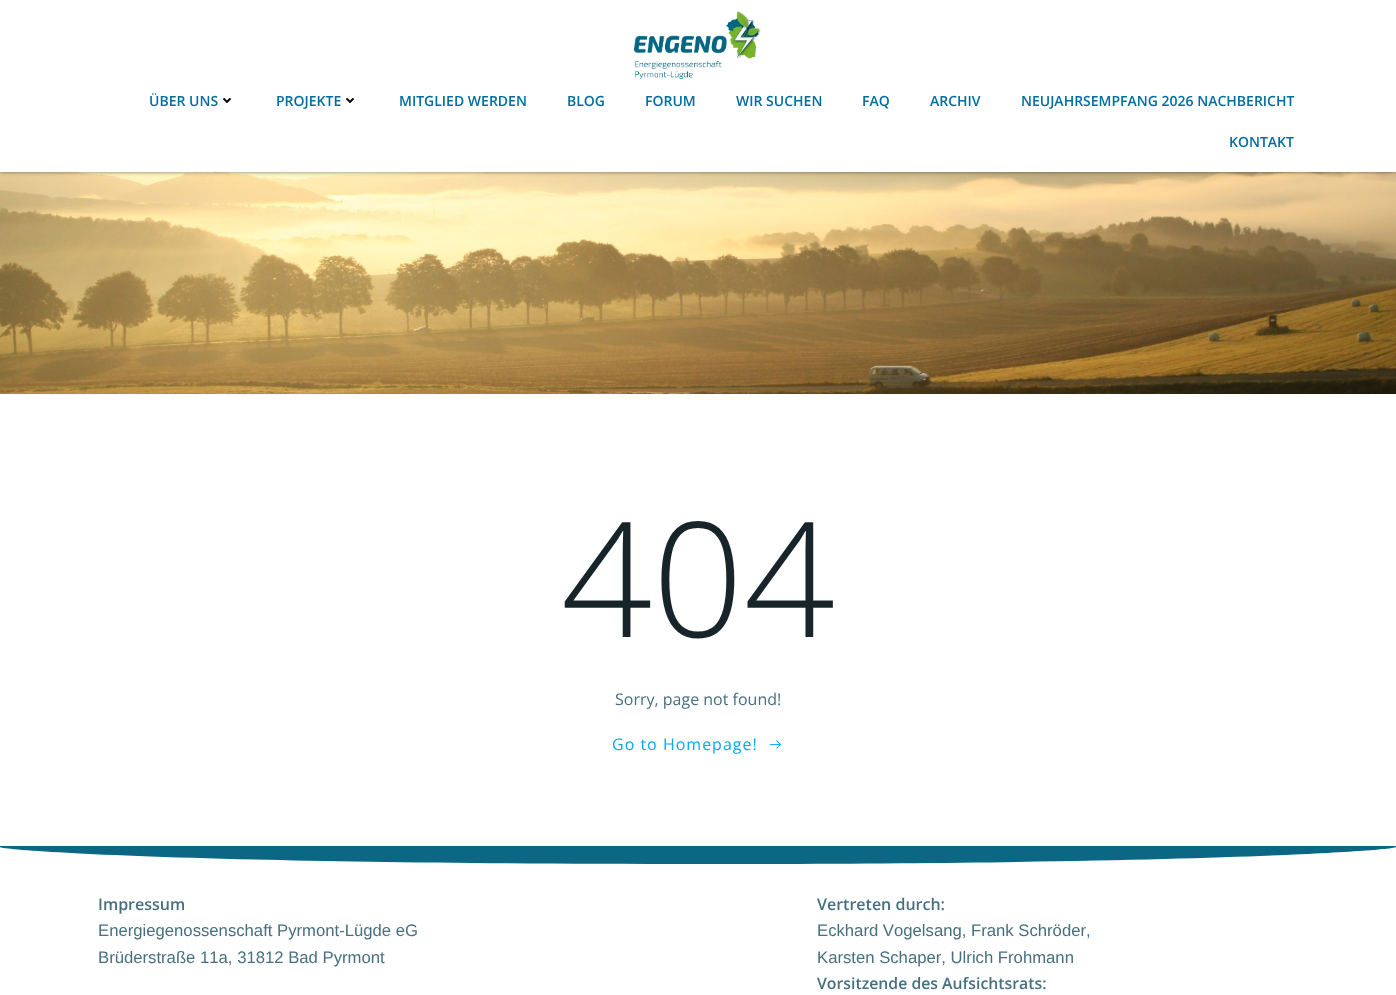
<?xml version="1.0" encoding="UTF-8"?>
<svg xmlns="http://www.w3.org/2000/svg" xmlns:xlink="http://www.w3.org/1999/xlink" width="1396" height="995">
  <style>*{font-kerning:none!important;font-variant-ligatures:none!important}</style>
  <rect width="100%" height="100%" fill="#ffffff" />
  <image x="0" y="172" width="1396" height="222" xlink:href="image3.png" />
  <rect width="1396" height="172" fill="#000000" fill-opacity="0.5" filter="blur(2px)" />
  <rect width="1396" height="172" fill="#ffffff" />
  <image x="634" y="11" width="127" height="68" xlink:href="image1.png" />
  <image x="223" y="98" width="8" height="5" xlink:href="image2.png" />
  <image x="346" y="98" width="8" height="5" xlink:href="image2.png" />
  <image x="769" y="740" width="12" height="9" xlink:href="image4.png" />
  <path d="M 1396 847 v -1 h -1396 v 1 c 1 3 177 17 698 17 c 521 0 698 -14 698 -17 z" fill="#0c6785" />
  <text x="149" y="106" style="font-family: Open Sans; font-size: 14px; font-weight: 600; fill: #026e9f">ÜBER UNS</text>
  <text x="276" y="106" style="font-family: Open Sans; font-size: 14px; font-weight: 600; fill: #026e9f">PROJEKTE</text>
  <text x="399" y="106" style="font-family: Open Sans; font-size: 14px; font-weight: 600; fill: #026e9f">MITGLIED WERDEN</text>
  <text x="567" y="106" style="font-family: Open Sans; font-size: 14px; font-weight: 600; fill: #026e9f">BLOG</text>
  <text x="645" y="106" style="font-family: Open Sans; font-size: 14px; font-weight: 600; fill: #026e9f">FORUM</text>
  <text x="736" y="106" style="font-family: Open Sans; font-size: 14px; font-weight: 600; fill: #026e9f">WIR SUCHEN</text>
  <text x="862" y="106" style="font-family: Open Sans; font-size: 14px; font-weight: 600; fill: #026e9f">FAQ</text>
  <text x="930" y="106" style="font-family: Open Sans; font-size: 14px; font-weight: 600; fill: #026e9f">ARCHIV</text>
  <text x="1021" y="106" style="font-family: Open Sans; font-size: 14px; font-weight: 600; fill: #026e9f">NEUJAHRSEMPFANG 2026 NACHBERICHT</text>
  <text x="1229" y="147" style="font-family: Open Sans; font-size: 14px; font-weight: 600; fill: #026e9f">KONTAKT</text>
  <text x="561" y="637" style="font-family: Open Sans; font-size: 160px; font-weight: 300; fill: #17252a">404</text>
  <text x="615" y="705" style="font-family: Open Sans; font-size: 16px; fill: #46707f">Sorry, page not found!</text>
  <text x="612" y="750" style="font-family: Open Sans; font-size: 16px; letter-spacing: 1px; fill: #03a9f4">Go to Homepage!</text>
  <text x="98" y="910" style="font-family: Open Sans; font-size: 16px; font-weight: 600; fill: #46707f">Impressum</text>
  <text x="98" y="936" style="font-family: Liberation Sans; font-size: 16.7px; fill: #46707f">Energiegenossenschaft Pyrmont-Lügde eG</text>
  <text x="98" y="963" style="font-family: Liberation Sans; font-size: 16.7px; fill: #46707f">Brüderstraße 11a, 31812 Bad Pyrmont</text>
  <text x="817" y="910" style="font-family: Open Sans; font-size: 16px; font-weight: 600; fill: #46707f">Vertreten durch:</text>
  <text x="817" y="936" style="font-family: Liberation Sans; font-size: 16.7px; fill: #46707f">Eckhard Vogelsang, Frank Schröder,</text>
  <text x="817" y="963" style="font-family: Liberation Sans; font-size: 16.7px; fill: #46707f">Karsten Schaper, Ulrich Frohmann</text>
  <text x="817" y="989" style="font-family: Open Sans; font-size: 15.8px; font-weight: 600; fill: #46707f">Vorsitzende des Aufsichtsrats:</text>
</svg>
